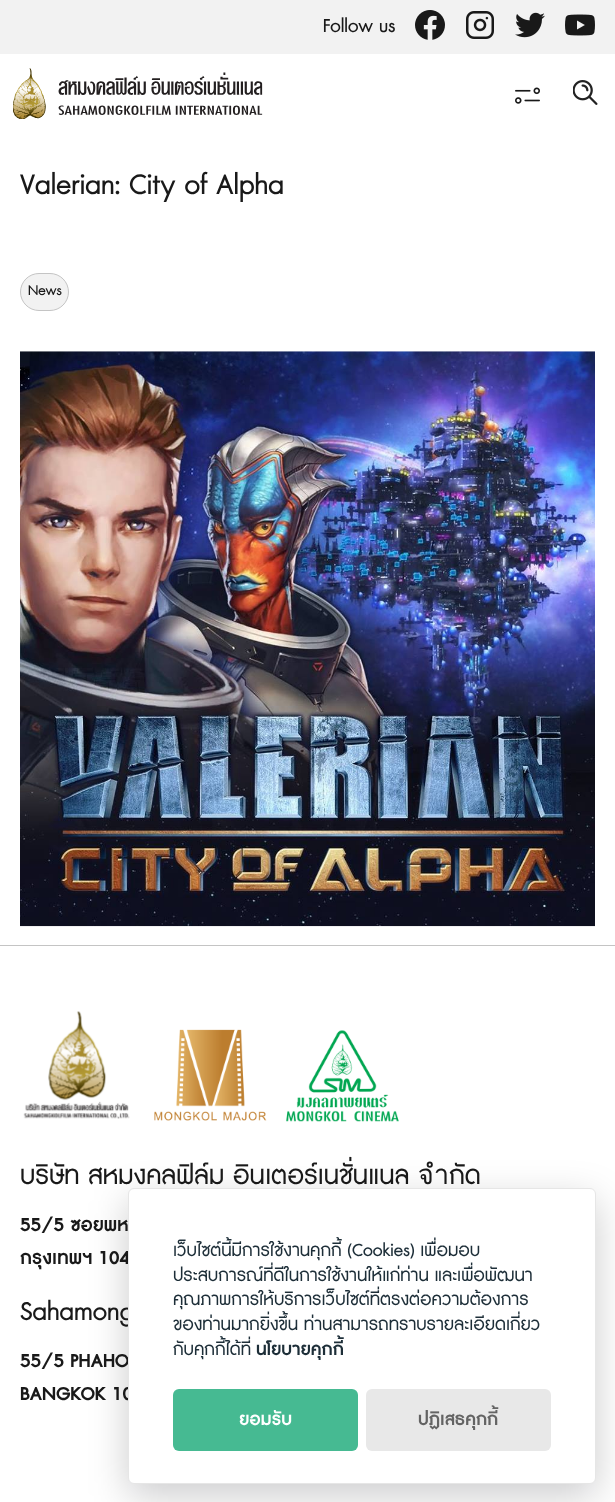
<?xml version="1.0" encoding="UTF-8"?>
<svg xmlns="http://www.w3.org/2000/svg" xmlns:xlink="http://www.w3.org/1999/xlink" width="615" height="1502">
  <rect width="100%" height="100%" fill="#ffffff" />
  <rect width="615" height="54" fill="#f2f2f2" />
  <image x="415" y="10" width="30" height="30" xlink:href="image1.png" />
  <image x="466" y="11" width="28" height="28" xlink:href="image2.png" />
  <image x="515" y="12" width="30" height="26" xlink:href="image3.png" />
  <image x="565" y="14" width="30" height="22" xlink:href="image4.png" />
  <image x="13" y="68" width="250" height="51" xlink:href="image5.png" />
  <image x="515" y="87" width="25" height="17" xlink:href="image6.png" />
  <image x="573" y="80" width="25" height="25" xlink:href="image7.png" />
  <rect x="20.5" y="273.5" width="48" height="37" rx="18.5" fill="#f2f2f2" stroke="#c4c4c4" />
  <image x="20" y="351" width="575" height="576" xlink:href="image8.png" />
  <rect y="945" width="615" height="1" fill="#c4c4c4" />
  <image x="23" y="1011" width="107" height="108" xlink:href="image9.png" />
  <image x="154" y="1029" width="113" height="92" xlink:href="image10.png" />
  <image x="286" y="1030" width="113" height="92" xlink:href="image11.png" />
  <rect x="128" y="1200" width="468" height="296" rx="6" fill="#020203" fill-opacity="0.2" filter="blur(19px)" />
  <text x="323" y="32" style="font-family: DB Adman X; font-size: 20px; fill: #191919">Follow us</text>
  <text x="20" y="194" style="font-family: DB Adman X; font-size: 30px; fill: #191919">Valerian: City of Alpha</text>
  <text x="28" y="295" style="font-family: DB Adman X; font-size: 15px; fill: #191919">News</text>
  <text x="20" y="1184" style="font-family: DB Adman X; font-size: 27.5px; fill: #191919">บริษัท สหมงคลฟิล์ม อินเตอร์เนชั่นแนล จำกัด</text>
  <text x="20" y="1231" style="font-family: DB Adman X; font-size: 20px; font-weight: bold; fill: #191919">55/5 ซอยพห</text>
  <text x="20" y="1264" style="font-family: DB Adman X; font-size: 20px; font-weight: bold; fill: #191919">กรุงเทพฯ 104</text>
  <text x="20" y="1320" style="font-family: DB Adman X; font-size: 27.5px; fill: #191919">Sahamong</text>
  <text x="20" y="1367" style="font-family: DB Adman X; font-size: 20px; font-weight: bold; fill: #191919">55/5 PHAHO</text>
  <text x="20" y="1400" style="font-family: DB Adman X; font-size: 20px; font-weight: bold; fill: #191919">BANGKOK 10</text>
  <rect x="128.5" y="1188.5" width="467" height="295" rx="5.5" fill="#ffffff" stroke="#e6e6e6" />
  <text x="173" y="1256" style="font-family: DB Adman X; font-size: 18.75px; fill: #1d2e38">เว็บไซต์นี้มีการใช้งานคุกกี้ (Cookies) เพื่อมอบ</text>
  <text x="173" y="1281" style="font-family: DB Adman X; font-size: 18.75px; fill: #1d2e38">ประสบการณ์ที่ดีในการใช้งานให้แก่ท่าน และเพื่อพัฒนา</text>
  <text x="173" y="1305" style="font-family: DB Adman X; font-size: 18.75px; fill: #1d2e38">คุณภาพการให้บริการเว็บไซต์ที่ตรงต่อความต้องการ</text>
  <text x="173" y="1330" style="font-family: DB Adman X; font-size: 18.75px; fill: #1d2e38">ของท่านมากยิ่งขึ้น ท่านสามารถทราบรายละเอียดเกี่ยว</text>
  <text x="173" y="1355" style="font-family: DB Adman X; font-size: 18.75px; fill: #1d2e38">กับคุกกี้ได้ที่</text>
  <text x="256" y="1355" style="font-family: DB Adman X; font-size: 18.75px; font-weight: bold; fill: #1d2e38">นโยบายคุกกี้</text>
  <rect x="173" y="1389" width="185" height="62" rx="6" fill="#46ba92" />
  <text x="239" y="1425" style="font-family: DB Adman X; font-size: 18.75px; font-weight: bold; fill: #ffffff">ยอมรับ</text>
  <rect x="366" y="1389" width="185" height="62" rx="6" fill="#e8e8e8" />
  <text x="418" y="1425" style="font-family: DB Adman X; font-size: 18.75px; font-weight: bold; fill: #636363">ปฏิเสธคุกกี้</text>
</svg>
